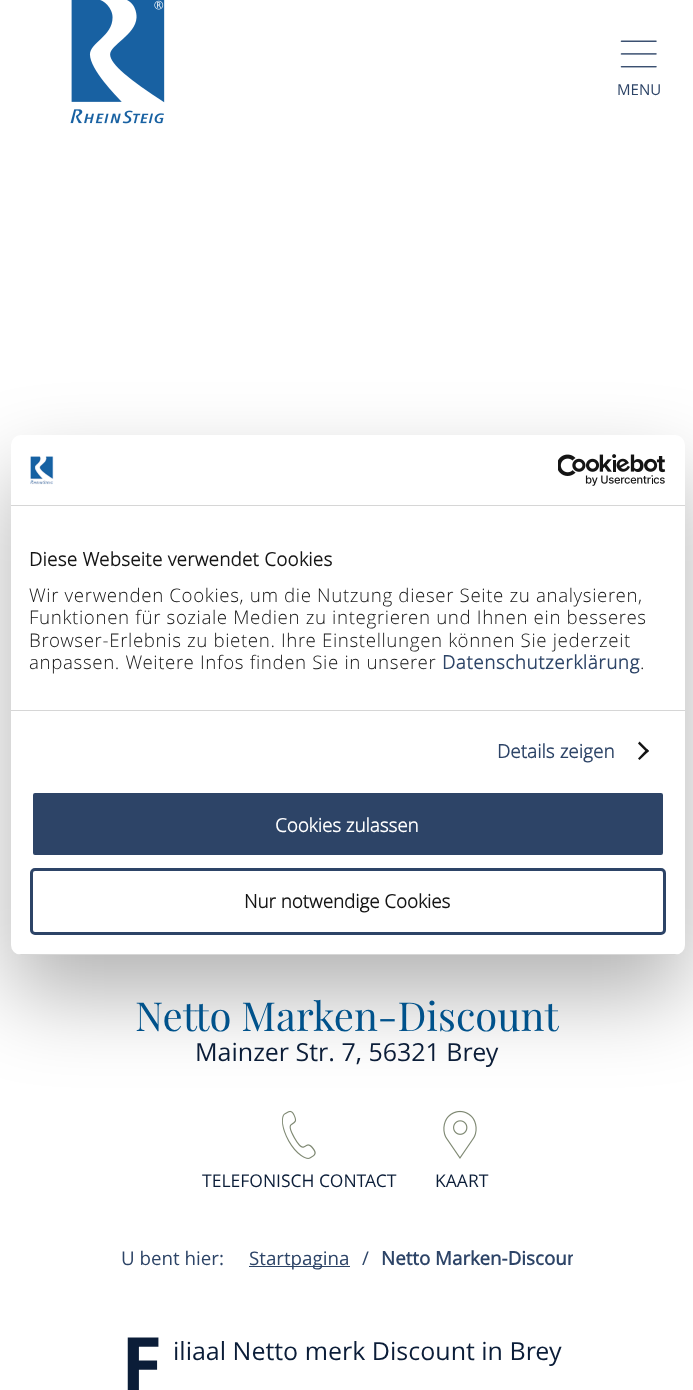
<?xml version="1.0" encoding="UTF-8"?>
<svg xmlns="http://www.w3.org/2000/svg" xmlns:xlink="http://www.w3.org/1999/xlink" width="693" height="1390">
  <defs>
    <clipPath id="clip1"><rect x="11" y="435" width="674" height="520" rx="10" /></clipPath>
    <clipPath id="clip2"><rect x="121" y="1239" width="452" height="37" /></clipPath>
  </defs>
  <rect width="100%" height="100%" fill="#ffffff" />
  <image x="70" y="0" width="95" height="124" xlink:href="image1.png" />
  <image x="620" y="40" width="37" height="28" xlink:href="image2.png" />
  <image x="282" y="1110" width="34" height="49" xlink:href="image5.png" />
  <image x="443" y="1110" width="34" height="49" xlink:href="image6.png" />
  <rect x="11" y="475" width="674" height="520" rx="10" fill="#000000" fill-opacity="0.3" filter="blur(42.5px)" />
  <rect x="11" y="435" width="674" height="520" rx="10" fill="#ffffff" />
  <rect x="11" y="505" width="674" height="1" fill="#d6d6d6" />
  <image x="30" y="456" width="24" height="29" xlink:href="image3.png" />
  <image x="558" y="454" width="108" height="32" xlink:href="image4.png" />
  <rect x="11" y="710" width="674" height="1" fill="#d6d6d6" />
  <path d="M 639.5 741.5 l 9.5 9.5 l -2 1.5 l -9 -9 z" fill="#141414" />
  <path d="M 647 749 l 2 2 l -9.5 9 l -1.5 -1.5 z" fill="#141414" />
  <g clip-path="url(#clip1)">
    <rect x="11" y="954" width="674" height="1" fill="#d6d6d6" />
  </g>
  <rect x="31.5" y="791.5" width="633" height="65" rx="3.5" fill="#2d4467" stroke="#ffffff" stroke-width="3" />
  <rect x="31.5" y="869.5" width="633" height="64" rx="3.5" fill="none" stroke="#2d4467" stroke-width="3" />
  <rect x="249" y="1266" width="101" height="1" fill="#2d4467" />
  <text x="617" y="95" style="font-family: Open Sans; font-size: 15px; fill: #2d4467">MENU</text>
  <text x="29" y="566" style="font-family: 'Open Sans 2'; font-size: 18.75px; font-weight: bold; letter-spacing: 0.3px; fill: #141414">Diese Webseite verwendet Cookies</text>
  <text x="29" y="602" style="font-family: Open Sans; font-size: 18.75px; font-weight: 300; letter-spacing: 0.62px; fill: #141414">Wir verwenden Cookies, um die Nutzung dieser Seite zu analysieren,</text>
  <text x="29" y="624" style="font-family: Open Sans; font-size: 18.75px; font-weight: 300; letter-spacing: 0.62px; fill: #141414">Funktionen für soziale Medien zu integrieren und Ihnen ein besseres</text>
  <text x="29" y="647" style="font-family: Open Sans; font-size: 18.75px; font-weight: 300; letter-spacing: 0.62px; fill: #141414">Browser-Erlebnis zu bieten. Ihre Einstellungen können Sie jederzeit</text>
  <text x="29" y="669" style="font-family: Open Sans; font-size: 18.75px; font-weight: 300; letter-spacing: 0.62px; fill: #141414">anpassen. Weitere Infos finden Sie in unserer</text>
  <text x="442" y="669" style="font-family: 'Open Sans 2'; font-size: 18.75px; font-weight: bold; letter-spacing: 0.62px; fill: #2d4467">Datenschutzerklärung</text>
  <text x="640" y="669" style="font-family: Open Sans; font-size: 18.75px; font-weight: 300; letter-spacing: 0.62px; fill: #141414">.</text>
  <text x="497" y="758" style="font-family: 'Open Sans 2'; font-size: 18.75px; font-weight: bold; letter-spacing: 0.1px; fill: #2d4467">Details zeigen</text>
  <text x="275" y="832" style="font-family: 'Open Sans 2'; font-size: 18.75px; font-weight: bold; fill: #ffffff">Cookies zulassen</text>
  <text x="244" y="908" style="font-family: 'Open Sans 2'; font-size: 18.75px; font-weight: bold; fill: #141414">Nur notwendige Cookies</text>
  <text x="135" y="1031" style="font-family: Playfair Display; font-size: 40px; fill: #00528b">Netto Marken-Discount</text>
  <text x="195" y="1061" style="font-family: Open Sans; font-size: 25px; fill: #0b1d38">Mainzer Str. 7, 56321 Brey</text>
  <text x="202" y="1187" style="font-family: Open Sans; font-size: 17.5px; fill: #0b1d38">TELEFONISCH CONTACT</text>
  <text x="435" y="1187" style="font-family: Open Sans; font-size: 17.5px; fill: #0b1d38">KAART</text>
  <text x="121" y="1265" style="font-family: Open Sans; font-size: 18.75px; fill: #2d4467">U bent hier:</text>
  <text x="249" y="1265" style="font-family: Open Sans; font-size: 18.75px; fill: #2d4467">Startpagina</text>
  <text x="362" y="1265" style="font-family: Open Sans; font-size: 18.75px; fill: #2d4467">/</text>
  <g clip-path="url(#clip2)">
    <text x="381" y="1265" style="font-family: Open Sans; font-size: 18.75px; font-weight: bold; fill: #2d4467">Netto Marken-Discoun</text>
  </g>
  <text x="121" y="1391" style="font-family: Noto Sans; font-size: 75px; font-weight: bold; fill: #0b1d38">F</text>
  <text x="173" y="1360" style="font-family: Open Sans; font-size: 25px; fill: #0b1d38">iliaal Netto merk Discount in Brey</text>
</svg>
